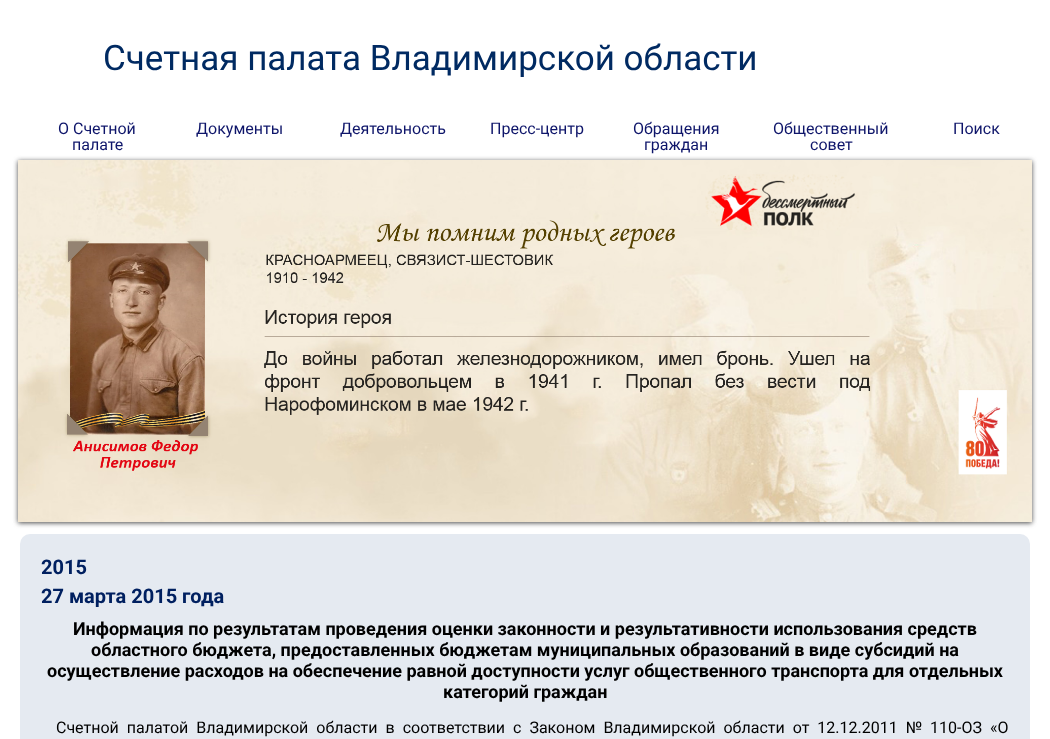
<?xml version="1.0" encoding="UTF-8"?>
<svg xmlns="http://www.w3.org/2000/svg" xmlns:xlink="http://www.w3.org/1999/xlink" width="1050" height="739">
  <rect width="100%" height="100%" fill="#ffffff" />
  <rect x="18" y="161" width="1014" height="362" fill="#4a4a4a" filter="blur(2.5px)" />
  <image x="18" y="160" width="1014" height="362" xlink:href="image1.png" />
  <rect x="20" y="534" width="1010" height="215" rx="10" fill="#e5eaf1" />
  <text x="103" y="70" style="font-family: Roboto; font-size: 35px; fill: #002a62">Счетная палата Владимирской области</text>
  <text x="58" y="134" style="font-family: Roboto; font-size: 16px; fill: #0e156a">О Счетной</text>
  <text x="72" y="150" style="font-family: Roboto; font-size: 16px; fill: #0e156a">палате</text>
  <text x="196" y="134" style="font-family: Roboto; font-size: 16px; fill: #0e156a">Документы</text>
  <text x="340" y="134" style="font-family: Roboto; font-size: 16px; fill: #0e156a">Деятельность</text>
  <text x="490" y="134" style="font-family: Roboto; font-size: 16px; fill: #0e156a">Пресс-центр</text>
  <text x="633" y="134" style="font-family: Roboto; font-size: 16px; fill: #0e156a">Обращения</text>
  <text x="644" y="150" style="font-family: Roboto; font-size: 16px; fill: #0e156a">граждан</text>
  <text x="773" y="134" style="font-family: Roboto; font-size: 16px; fill: #0e156a">Общественный</text>
  <text x="810" y="150" style="font-family: Roboto; font-size: 16px; fill: #0e156a">совет</text>
  <text x="953" y="134" style="font-family: Roboto; font-size: 16px; fill: #0e156a">Поиск</text>
  <text x="41" y="574" style="font-family: Roboto; font-size: 20px; font-weight: bold; fill: #002060">2015</text>
  <text x="41" y="603" style="font-family: Roboto; font-size: 20px; font-weight: bold; fill: #002060">27 марта 2015 года</text>
  <text x="73" y="635" style="font-family: Roboto; font-size: 18px; font-weight: bold; fill: #000000">Информация по результатам проведения оценки законности и результативности использования средств</text>
  <text x="91" y="656" style="font-family: Roboto; font-size: 18px; font-weight: bold; fill: #000000">областного бюджета, предоставленных бюджетам муниципальных образований в виде субсидий на</text>
  <text x="47" y="677" style="font-family: Roboto; font-size: 18px; font-weight: bold; fill: #000000">осуществление расходов на обеспечение равной доступности услуг общественного транспорта для отдельных</text>
  <text x="443" y="698" style="font-family: Roboto; font-size: 18px; font-weight: bold; fill: #000000">категорий граждан</text>
  <text x="56" y="733" word-spacing="4" style="font-family: Roboto; font-size: 16px; fill: #000000">Счетной палатой Владимирской области в соответствии с Законом Владимирской области от 12.12.2011 № 110-ОЗ «О</text>
</svg>
